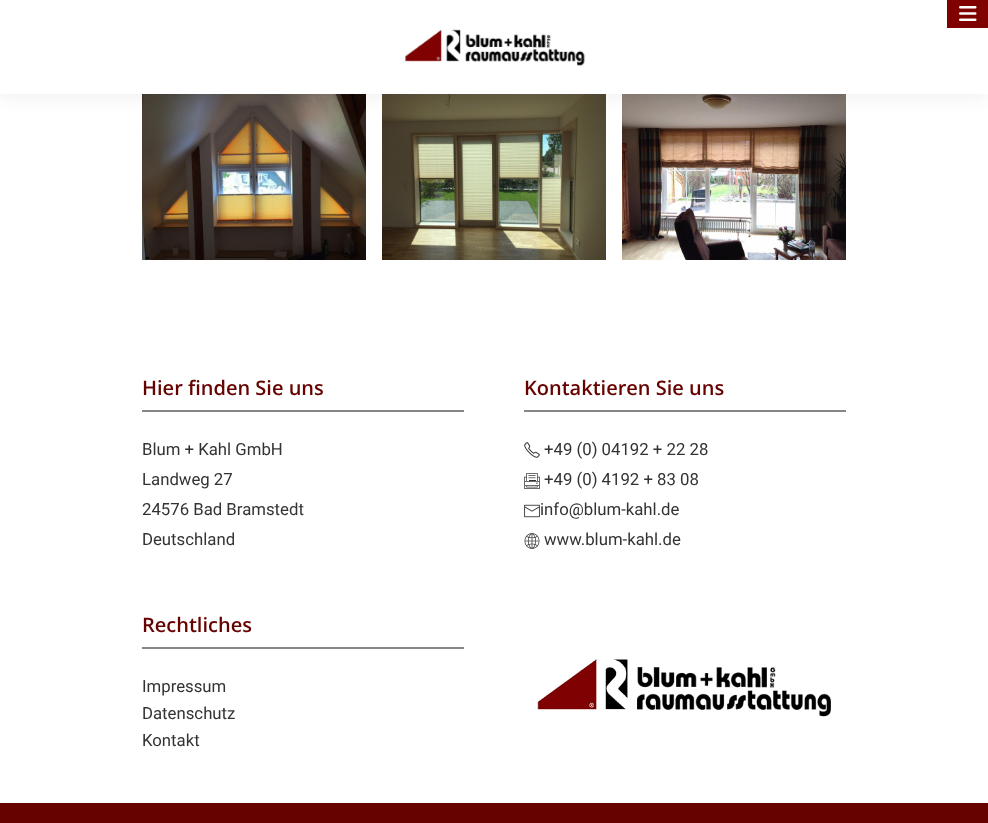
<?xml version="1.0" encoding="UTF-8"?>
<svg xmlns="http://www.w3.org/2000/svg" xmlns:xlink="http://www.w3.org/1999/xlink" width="988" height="823">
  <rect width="100%" height="100%" fill="#ffffff" />
  <image x="142" y="94" width="224" height="166" xlink:href="image3.png" />
  <image x="382" y="94" width="224" height="166" xlink:href="image4.png" />
  <image x="622" y="94" width="224" height="166" xlink:href="image5.png" />
  <rect width="988" height="94" fill="#333333" fill-opacity="0.1" filter="blur(10px)" />
  <rect width="988" height="94" fill="#ffffff" />
  <rect x="947" width="41" height="28" fill="#7f0201" />
  <image x="959" y="6" width="18" height="15" xlink:href="image1.png" />
  <image x="405" y="29" width="181" height="37" xlink:href="image2.png" />
  <rect x="142" y="410" width="322" height="2" fill="#868686" />
  <rect x="524" y="410" width="322" height="2" fill="#868686" />
  <image x="524" y="442" width="16" height="16" xlink:href="image6.png" />
  <image x="524" y="473" width="16" height="16" xlink:href="image7.png" />
  <image x="524" y="504" width="16" height="14" xlink:href="image8.png" />
  <image x="524" y="533" width="16" height="16" xlink:href="image9.png" />
  <rect x="142" y="647" width="322" height="2" fill="#868686" />
  <image x="537" y="659" width="294" height="58" xlink:href="image10.png" />
  <rect y="803" width="988" height="20" fill="#660300" />
  <text x="142" y="395" style="font-family: Open Sans; font-size: 20px; font-weight: 600; fill: #660300">Hier finden Sie uns</text>
  <text x="142" y="455" style="font-family: Roboto; font-size: 16.75px; fill: #333333">Blum + Kahl GmbH</text>
  <text x="142" y="485" style="font-family: Roboto; font-size: 16.75px; fill: #333333">Landweg 27</text>
  <text x="142" y="515" style="font-family: Roboto; font-size: 16.75px; fill: #333333">24576 Bad Bramstedt</text>
  <text x="142" y="545" style="font-family: Roboto; font-size: 16.75px; fill: #333333">Deutschland</text>
  <text x="524" y="395" style="font-family: Open Sans; font-size: 20px; font-weight: 600; fill: #660300">Kontaktieren Sie uns</text>
  <text x="544" y="455" style="font-family: Roboto; font-size: 16.75px; fill: #333333">+49 (0) 04192 + 22 28</text>
  <text x="544" y="485" style="font-family: Roboto; font-size: 16.75px; fill: #333333">+49 (0) 4192 + 83 08</text>
  <text x="540" y="515" style="font-family: Roboto; font-size: 16.75px; fill: #333333">info@blum-kahl.de</text>
  <text x="544" y="545" style="font-family: Roboto; font-size: 16.75px; fill: #333333">www.blum-kahl.de</text>
  <text x="142" y="632" style="font-family: Open Sans; font-size: 20px; font-weight: 600; fill: #660300">Rechtliches</text>
  <text x="142" y="692" style="font-family: Roboto; font-size: 16.75px; fill: #333333">Impressum</text>
  <text x="142" y="719" style="font-family: Roboto; font-size: 16.75px; fill: #333333">Datenschutz</text>
  <text x="142" y="746" style="font-family: Roboto; font-size: 16.75px; fill: #333333">Kontakt</text>
</svg>
